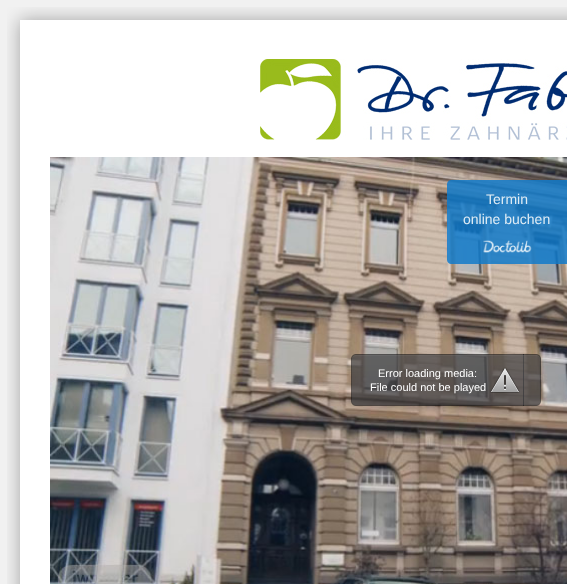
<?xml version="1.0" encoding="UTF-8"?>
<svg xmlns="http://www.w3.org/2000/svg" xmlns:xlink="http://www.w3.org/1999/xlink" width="567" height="584">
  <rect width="100%" height="100%" fill="#f1f1f1" />
  <image x="7" y="7" width="560" height="577" xlink:href="image2.png" />
  <image x="50" y="157" width="517" height="427" xlink:href="image4.png" />
  <path d="M 451 180 h 116 v 84 h -116 c -2 0 -4 -2 -4 -4 v -76 c 0 -2 2 -4 4 -4 z" fill="#107aca" fill-opacity="0.85" />
  <image x="483" y="240" width="49" height="13" xlink:href="image1.png" />
  <image x="260" y="59" width="307" height="81" xlink:href="image3.png" />
  <image x="351" y="354" width="190" height="52" xlink:href="image5.png" />
  <image x="490" y="367" width="30" height="26" xlink:href="image6.png" />
  <text x="486" y="204" style="font-family: Liberation Sans; font-size: 14px; fill: #dfecf5">Termin</text>
  <text x="463" y="224" style="font-family: Liberation Sans; font-size: 14px; fill: #dfecf5">online buchen</text>
  <text x="378" y="377" style="font-family: Liberation Sans; font-size: 11px; fill: #ffffff">Error loading media:</text>
  <text x="370" y="391" style="font-family: Liberation Sans; font-size: 11px; fill: #ffffff">File could not be played</text>
</svg>
